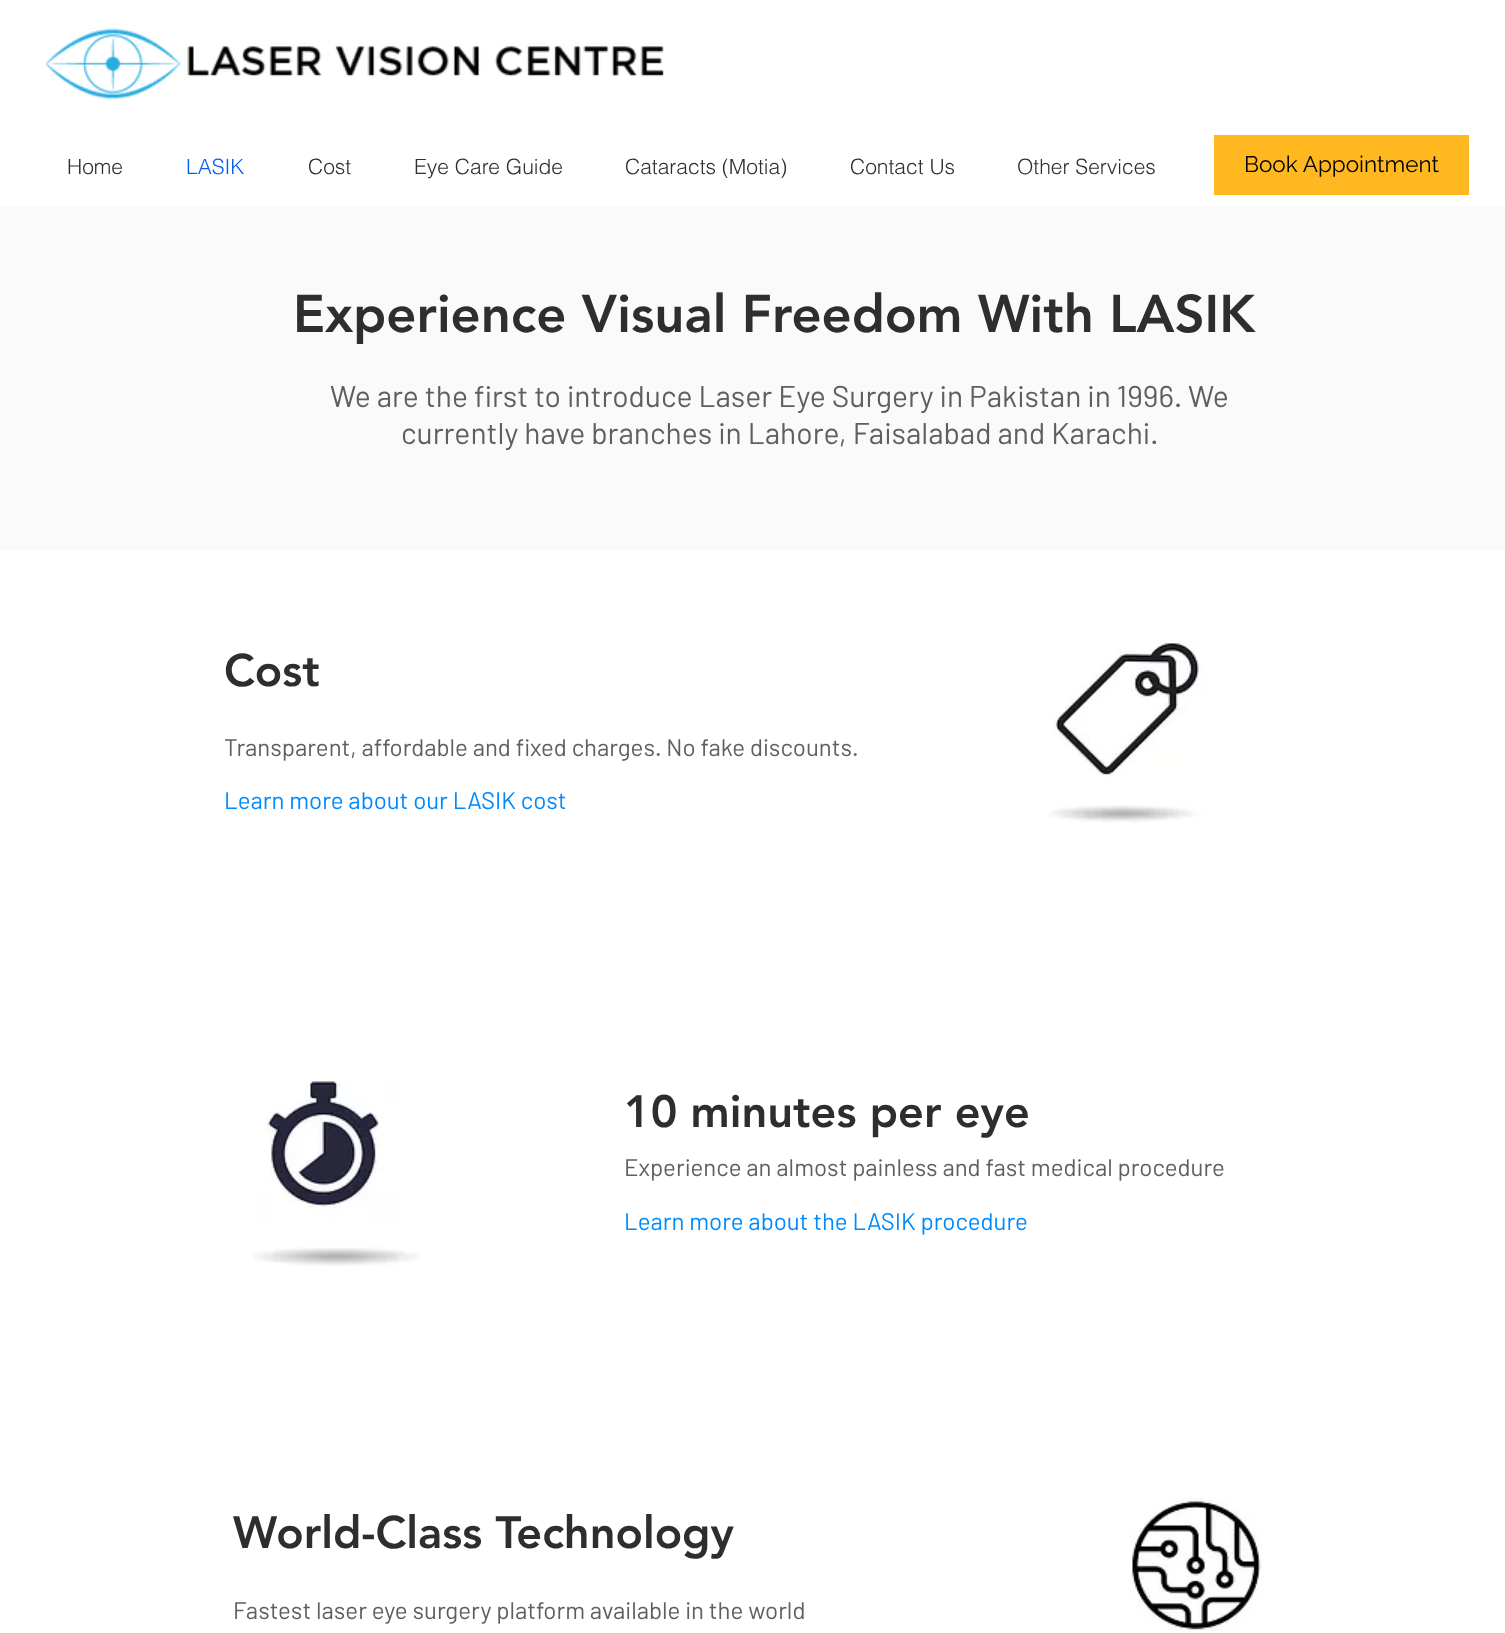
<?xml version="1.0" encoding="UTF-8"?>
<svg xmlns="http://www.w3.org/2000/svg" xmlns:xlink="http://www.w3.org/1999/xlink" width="1505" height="1633">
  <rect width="100%" height="100%" fill="#ffffff" />
  <image x="45" y="28" width="619" height="72" xlink:href="image1.png" />
  <rect x="1214" y="135" width="255" height="60" fill="#ffb81f" />
  <rect y="207" width="1505" height="344" fill="#fafafa" />
  <image x="1049" y="643" width="154" height="180" xlink:href="image2.png" />
  <image x="252" y="1081" width="167" height="185" xlink:href="image3.png" />
  <image x="1132" y="1498" width="131" height="133" xlink:href="image4.png" />
  <text x="67" y="174" style="font-family: helvetica; font-size: 21px; font-weight: 300; fill: #2f2e2e">Home</text>
  <text x="186" y="174" style="font-family: helvetica; font-size: 21px; font-weight: 300; fill: #0060ef">LASIK</text>
  <text x="308" y="174" style="font-family: helvetica; font-size: 21px; font-weight: 300; fill: #2f2e2e">Cost</text>
  <text x="414" y="174" style="font-family: helvetica; font-size: 21px; font-weight: 300; fill: #2f2e2e">Eye Care Guide</text>
  <text x="625" y="174" style="font-family: helvetica; font-size: 21px; font-weight: 300; fill: #2f2e2e">Cataracts (Motia)</text>
  <text x="850" y="174" style="font-family: helvetica; font-size: 21px; font-weight: 300; fill: #2f2e2e">Contact Us</text>
  <text x="1017" y="174" style="font-family: helvetica; font-size: 21px; font-weight: 300; fill: #2f2e2e">Other Services</text>
  <text x="1244" y="172" style="font-family: Raleway; font-size: 22.5px; fill: #000000">Book Appointment</text>
  <text x="293" y="332" style="font-family: 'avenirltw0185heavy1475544'; font-size: 52.5px; font-weight: 900; fill: #2f2e2e">Experience Visual Freedom With LASIK</text>
  <text x="330" y="407" style="font-family: Barlow; font-size: 30px; fill: #605e5e">We are the first to introduce Laser Eye Surgery in Pakistan in 1996. We</text>
  <text x="401" y="444" style="font-family: Barlow; font-size: 30px; fill: #605e5e">currently have branches in Lahore, Faisalabad and Karachi.</text>
  <text x="224" y="686" style="font-family: 'avenirltw0185heavy1475544'; font-size: 45px; font-weight: 900; fill: #2f2e2e">Cost</text>
  <text x="224" y="756" style="font-family: Barlow; font-size: 24px; fill: #605e5e">Transparent, affordable and fixed charges. No fake discounts.</text>
  <text x="224" y="809" style="font-family: Barlow; font-size: 24px; fill: #008afc">Learn more about our LASIK cost</text>
  <text x="624" y="1127" style="font-family: 'avenirltw0185heavy1475544'; font-size: 45px; font-weight: 900; fill: #2f2e2e">10 minutes per eye</text>
  <text x="624" y="1176" style="font-family: Barlow; font-size: 24px; fill: #605e5e">Experience an almost painless and fast medical procedure</text>
  <text x="624" y="1230" style="font-family: Barlow; font-size: 24px; fill: #008afc">Learn more about the LASIK procedure</text>
  <text x="233" y="1548" style="font-family: 'avenirltw0185heavy1475544'; font-size: 45px; font-weight: 900; fill: #2f2e2e">World-Class Technology</text>
  <text x="233" y="1619" style="font-family: Barlow; font-size: 24px; fill: #605e5e">Fastest laser eye surgery platform available in the world</text>
</svg>
